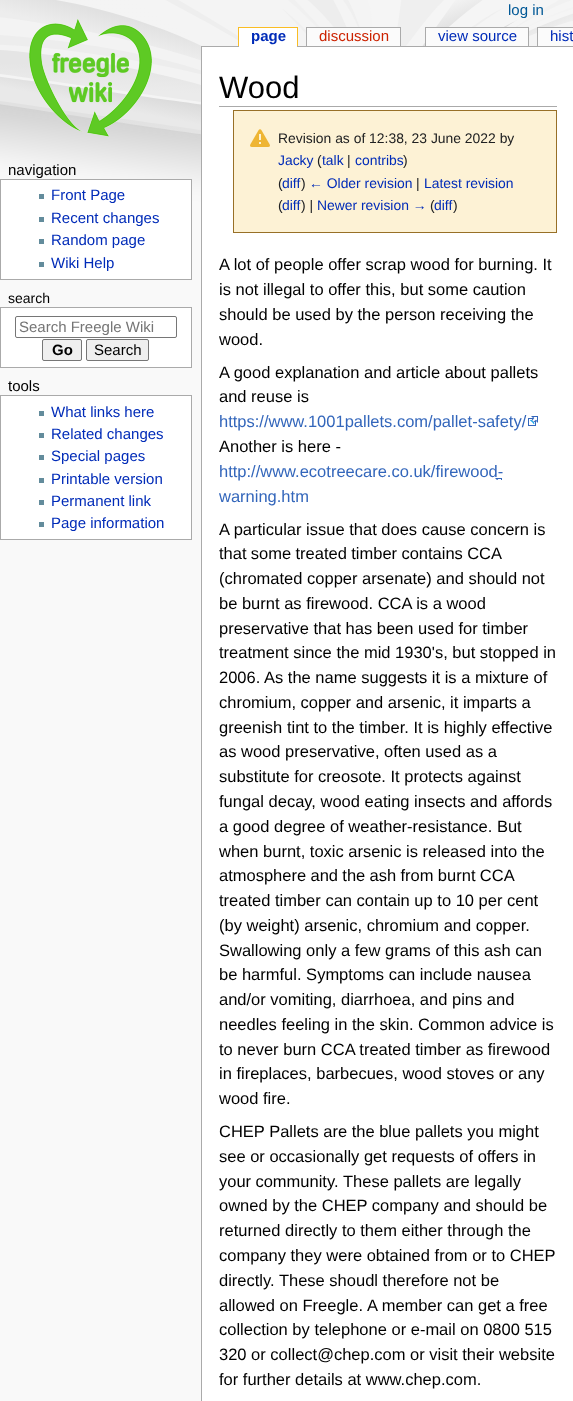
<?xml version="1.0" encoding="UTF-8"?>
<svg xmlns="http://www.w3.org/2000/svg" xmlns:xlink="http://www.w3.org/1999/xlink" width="573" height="1401">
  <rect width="100%" height="100%" fill="#f9f9f9" />
  <image x="0" y="0" width="573" height="210" xlink:href="image1.png" />
  <image x="29" y="19" width="123" height="118" xlink:href="image2.png" />
  <rect x="238" y="27" width="60" height="1" fill="#fabd23" />
  <rect x="297" y="27" width="1" height="19" fill="#fabd23" />
  <rect x="238" y="27" width="1" height="19" fill="#fabd23" />
  <rect x="201" y="46" width="372" height="1" fill="#aaaaaa" />
  <rect x="239" y="28" width="58" height="19" fill="#ffffff" />
  <rect x="306" y="27" width="95" height="1" fill="#aaaaaa" />
  <rect x="400" y="27" width="1" height="19" fill="#aaaaaa" />
  <rect x="306" y="27" width="1" height="19" fill="#aaaaaa" />
  <rect x="307" y="28" width="93" height="18" fill="#fbfbfb" />
  <rect x="425" y="27" width="104" height="1" fill="#aaaaaa" />
  <rect x="528" y="27" width="1" height="19" fill="#aaaaaa" />
  <rect x="425" y="27" width="1" height="19" fill="#aaaaaa" />
  <rect x="426" y="28" width="102" height="18" fill="#fbfbfb" />
  <rect x="537" y="27" width="36" height="1" fill="#aaaaaa" />
  <rect x="537" y="27" width="1" height="19" fill="#aaaaaa" />
  <rect x="538" y="28" width="35" height="18" fill="#fbfbfb" />
  <rect x="0.5" y="179.5" width="191" height="100" fill="#ffffff" stroke="#aaaaaa" />
  <rect x="39" y="194" width="5" height="5" fill="#638c9c" />
  <rect x="39" y="217" width="5" height="5" fill="#638c9c" />
  <rect x="39" y="239" width="5" height="5" fill="#638c9c" />
  <rect x="39" y="262" width="5" height="5" fill="#638c9c" />
  <rect x="0.5" y="307.5" width="191" height="60" fill="#ffffff" stroke="#aaaaaa" />
  <rect x="15.5" y="316.5" width="161" height="21" rx="1.5" fill="none" stroke="#767676" />
  <rect x="42.5" y="339.5" width="39" height="21" rx="1.5" fill="#efefef" stroke="#767676" />
  <rect x="86.5" y="339.5" width="62" height="21" rx="1.5" fill="#efefef" stroke="#767676" />
  <rect x="0.5" y="395.5" width="191" height="144" fill="#ffffff" stroke="#aaaaaa" />
  <rect x="39" y="411" width="5" height="5" fill="#638c9c" />
  <rect x="39" y="433" width="5" height="5" fill="#638c9c" />
  <rect x="39" y="455" width="5" height="5" fill="#638c9c" />
  <rect x="39" y="478" width="5" height="5" fill="#638c9c" />
  <rect x="39" y="500" width="5" height="5" fill="#638c9c" />
  <rect x="39" y="522" width="5" height="5" fill="#638c9c" />
  <rect x="202" y="47" width="371" height="1354" fill="#ffffff" />
  <rect x="201" y="46" width="1" height="1355" fill="#aaaaaa" />
  <rect x="219" y="106" width="338" height="1" fill="#aaaaaa" />
  <rect x="233.5" y="110.5" width="323" height="122" fill="#fdf2d5" stroke="#987027" />
  <image x="250" y="129" width="20" height="18" xlink:href="image3.png" />
  <image x="528" y="416" width="10" height="10" xlink:href="image4.png" />
  <image x="495" y="478" width="7" height="2" xlink:href="image5.png" />
  <text x="508" y="15" style="font-family: Liberation Sans; font-size: 15px; fill: #005896">log in</text>
  <text x="251" y="41" style="font-family: Liberation Sans; font-size: 15px; font-weight: bold; fill: #002bb8">page</text>
  <text x="319" y="41" style="font-family: Liberation Sans; font-size: 15px; fill: #cc2200">discussion</text>
  <text x="438" y="41" style="font-family: Liberation Sans; font-size: 15px; fill: #002bb8">view source</text>
  <text x="550" y="41" style="font-family: Liberation Sans; font-size: 15px; fill: #002bb8">hist</text>
  <text x="8" y="175" style="font-family: Liberation Sans; font-size: 15px; fill: #000000">navigation</text>
  <text x="51" y="200" style="font-family: Liberation Sans; font-size: 15px; fill: #002bb8">Front Page</text>
  <text x="51" y="223" style="font-family: Liberation Sans; font-size: 15px; fill: #002bb8">Recent changes</text>
  <text x="51" y="245" style="font-family: Liberation Sans; font-size: 15px; fill: #002bb8">Random page</text>
  <text x="51" y="268" style="font-family: Liberation Sans; font-size: 15px; fill: #002bb8">Wiki Help</text>
  <text x="8" y="303" style="font-family: Liberation Sans; font-size: 14px; fill: #000000">search</text>
  <text x="19" y="332" style="font-family: Liberation Sans; font-size: 15px; fill: #757575">Search Freegle Wiki</text>
  <text x="52" y="355" style="font-family: Liberation Sans; font-size: 15px; font-weight: bold; fill: #000000">Go</text>
  <text x="94" y="355" style="font-family: Liberation Sans; font-size: 15px; fill: #000000">Search</text>
  <text x="8" y="391" style="font-family: Liberation Sans; font-size: 15px; fill: #000000">tools</text>
  <text x="51" y="417" style="font-family: Liberation Sans; font-size: 15px; fill: #002bb8">What links here</text>
  <text x="51" y="439" style="font-family: Liberation Sans; font-size: 15px; fill: #002bb8">Related changes</text>
  <text x="51" y="461" style="font-family: Liberation Sans; font-size: 15px; fill: #002bb8">Special pages</text>
  <text x="51" y="484" style="font-family: Liberation Sans; font-size: 15px; fill: #002bb8">Printable version</text>
  <text x="51" y="506" style="font-family: Liberation Sans; font-size: 15px; fill: #002bb8">Permanent link</text>
  <text x="51" y="528" style="font-family: Liberation Sans; font-size: 15px; fill: #002bb8">Page information</text>
  <text x="219" y="98" style="font-family: Liberation Sans; font-size: 31px; fill: #000000">Wood</text>
  <text x="278" y="143" style="font-family: Liberation Sans; font-size: 13.9px; fill: #202122">Revision as of 12:38, 23 June 2022 by</text>
  <text x="278" y="165" style="font-family: Liberation Sans; font-size: 13.9px; fill: #002bb8">Jacky</text>
  <text x="317" y="165" style="font-family: Liberation Sans; font-size: 13.9px; fill: #202122">(</text>
  <text x="322" y="165" style="font-family: Liberation Sans; font-size: 13.9px; fill: #002bb8">talk</text>
  <text x="347" y="165" style="font-family: Liberation Sans; font-size: 13.9px; fill: #202122">|</text>
  <text x="355" y="165" style="font-family: Liberation Sans; font-size: 13.9px; fill: #002bb8">contribs</text>
  <text x="403" y="165" style="font-family: Liberation Sans; font-size: 13.9px; fill: #202122">)</text>
  <text x="278" y="188" style="font-family: Liberation Sans; font-size: 13.9px; fill: #202122">(</text>
  <text x="282" y="188" style="font-family: Liberation Sans; font-size: 13.9px; fill: #002bb8">diff</text>
  <text x="301" y="188" style="font-family: Liberation Sans; font-size: 13.9px; fill: #202122">)</text>
  <text x="309" y="188" style="font-family: Liberation Sans; font-size: 13.9px; fill: #002bb8">← Older revision</text>
  <text x="416" y="188" style="font-family: Liberation Sans; font-size: 13.9px; fill: #202122">|</text>
  <text x="424" y="188" style="font-family: Liberation Sans; font-size: 13.9px; fill: #002bb8">Latest revision</text>
  <text x="278" y="210" style="font-family: Liberation Sans; font-size: 13.9px; fill: #202122">(</text>
  <text x="282" y="210" style="font-family: Liberation Sans; font-size: 13.9px; fill: #002bb8">diff</text>
  <text x="301" y="210" style="font-family: Liberation Sans; font-size: 13.9px; fill: #202122">) |</text>
  <text x="317" y="210" style="font-family: Liberation Sans; font-size: 13.9px; fill: #002bb8">Newer revision →</text>
  <text x="430" y="210" style="font-family: Liberation Sans; font-size: 13.9px; fill: #202122">(</text>
  <text x="434" y="210" style="font-family: Liberation Sans; font-size: 13.9px; fill: #002bb8">diff</text>
  <text x="453" y="210" style="font-family: Liberation Sans; font-size: 13.9px; fill: #202122">)</text>
  <text x="219" y="270" style="font-family: Liberation Sans; font-size: 16.5px; fill: #000000">A lot of people offer scrap wood for burning. It</text>
  <text x="219" y="295" style="font-family: Liberation Sans; font-size: 16.5px; fill: #000000">is not illegal to offer this, but some caution</text>
  <text x="219" y="320" style="font-family: Liberation Sans; font-size: 16.5px; fill: #000000">should be used by the person receiving the</text>
  <text x="219" y="345" style="font-family: Liberation Sans; font-size: 16.5px; fill: #000000">wood.</text>
  <text x="219" y="378" style="font-family: Liberation Sans; font-size: 16.5px; fill: #000000">A good explanation and article about pallets</text>
  <text x="219" y="402" style="font-family: Liberation Sans; font-size: 16.5px; fill: #000000">and reuse is</text>
  <text x="219" y="427" style="font-family: Liberation Sans; font-size: 16.5px; fill: #3366bb">https://www.1001pallets.com/pallet-safety/</text>
  <text x="219" y="452" style="font-family: Liberation Sans; font-size: 16.5px; fill: #000000">Another is here -</text>
  <text x="219" y="477" style="font-family: Liberation Sans; font-size: 16.5px; fill: #3366bb">http://www.ecotreecare.co.uk/firewood-</text>
  <text x="219" y="502" style="font-family: Liberation Sans; font-size: 16.5px; fill: #3366bb">warning.htm</text>
  <text x="219" y="535" style="font-family: Liberation Sans; font-size: 16.5px; fill: #000000">A particular issue that does cause concern is</text>
  <text x="219" y="559" word-spacing="-0.25" style="font-family: Liberation Sans; font-size: 16.5px; fill: #000000">that some treated timber contains CCA</text>
  <text x="219" y="584" style="font-family: Liberation Sans; font-size: 16.5px; fill: #000000">(chromated copper arsenate) and should not</text>
  <text x="219" y="609" style="font-family: Liberation Sans; font-size: 16.5px; fill: #000000">be burnt as firewood. CCA is a wood</text>
  <text x="219" y="634" style="font-family: Liberation Sans; font-size: 16.5px; fill: #000000">preservative that has been used for timber</text>
  <text x="219" y="658" style="font-family: Liberation Sans; font-size: 16.5px; fill: #000000">treatment since the mid 1930's, but stopped in</text>
  <text x="219" y="683" style="font-family: Liberation Sans; font-size: 16.5px; fill: #000000">2006.</text>
  <text x="264" y="683" style="font-family: Liberation Sans; font-size: 16.5px; fill: #000000">As the name suggests it is a mixture of</text>
  <text x="219" y="708" style="font-family: Liberation Sans; font-size: 16.5px; fill: #000000">chromium, copper and arsenic, it imparts a</text>
  <text x="219" y="733" style="font-family: Liberation Sans; font-size: 16.5px; fill: #000000">greenish tint to the timber. It is highly effective</text>
  <text x="219" y="757" style="font-family: Liberation Sans; font-size: 16.5px; fill: #000000">as wood preservative, often used as a</text>
  <text x="219" y="782" style="font-family: Liberation Sans; font-size: 16.5px; fill: #000000">substitute for creosote. It protects against</text>
  <text x="219" y="807" style="font-family: Liberation Sans; font-size: 16.5px; fill: #000000">fungal decay, wood eating insects and affords</text>
  <text x="219" y="832" style="font-family: Liberation Sans; font-size: 16.5px; fill: #000000">a good degree of weather-resistance. But</text>
  <text x="219" y="857" style="font-family: Liberation Sans; font-size: 16.5px; fill: #000000">when burnt, toxic arsenic is released into the</text>
  <text x="219" y="881" word-spacing="-0.25" style="font-family: Liberation Sans; font-size: 16.5px; fill: #000000">atmosphere and the ash from burnt CCA</text>
  <text x="219" y="906" style="font-family: Liberation Sans; font-size: 16.5px; fill: #000000">treated timber can contain up to 10 per cent</text>
  <text x="219" y="931" style="font-family: Liberation Sans; font-size: 16.5px; fill: #000000">(by weight) arsenic, chromium and copper.</text>
  <text x="219" y="956" style="font-family: Liberation Sans; font-size: 16.5px; fill: #000000">Swallowing only a few grams of this ash can</text>
  <text x="219" y="980" style="font-family: Liberation Sans; font-size: 16.5px; fill: #000000">be harmful. Symptoms can include nausea</text>
  <text x="219" y="1005" style="font-family: Liberation Sans; font-size: 16.5px; fill: #000000">and/or vomiting, diarrhoea, and pins and</text>
  <text x="219" y="1030" style="font-family: Liberation Sans; font-size: 16.5px; fill: #000000">needles feeling in the skin. Common advice is</text>
  <text x="219" y="1055" style="font-family: Liberation Sans; font-size: 16.5px; fill: #000000">to never burn CCA treated timber as firewood</text>
  <text x="219" y="1079" style="font-family: Liberation Sans; font-size: 16.5px; fill: #000000">in fireplaces, barbecues, wood stoves or any</text>
  <text x="219" y="1104" style="font-family: Liberation Sans; font-size: 16.5px; fill: #000000">wood fire.</text>
  <text x="219" y="1137" style="font-family: Liberation Sans; font-size: 16.5px; fill: #000000">CHEP Pallets are the blue pallets you might</text>
  <text x="219" y="1162" style="font-family: Liberation Sans; font-size: 16.5px; fill: #000000">see or occasionally get requests of offers in</text>
  <text x="219" y="1187" word-spacing="-0.25" style="font-family: Liberation Sans; font-size: 16.5px; fill: #000000">your community.</text>
  <text x="343" y="1187" style="font-family: Liberation Sans; font-size: 16.5px; fill: #000000">These pallets are legally</text>
  <text x="219" y="1211" style="font-family: Liberation Sans; font-size: 16.5px; fill: #000000">owned by the CHEP company and should be</text>
  <text x="219" y="1236" style="font-family: Liberation Sans; font-size: 16.5px; fill: #000000">returned directly to them either through the</text>
  <text x="219" y="1261" style="font-family: Liberation Sans; font-size: 16.5px; fill: #000000">company they were obtained from or to CHEP</text>
  <text x="219" y="1286" style="font-family: Liberation Sans; font-size: 16.5px; fill: #000000">directly. These shoudl therefore not be</text>
  <text x="219" y="1311" style="font-family: Liberation Sans; font-size: 16.5px; fill: #000000">allowed on Freegle.</text>
  <text x="367" y="1311" style="font-family: Liberation Sans; font-size: 16.5px; fill: #000000">A member can get a free</text>
  <text x="219" y="1335" style="font-family: Liberation Sans; font-size: 16.5px; fill: #000000">collection by telephone or e-mail on 0800 515</text>
  <text x="219" y="1360" style="font-family: Liberation Sans; font-size: 16.5px; fill: #000000">320 or collect@chep.com or visit their website</text>
  <text x="219" y="1385" style="font-family: Liberation Sans; font-size: 16.5px; fill: #000000">for further details at www.chep.com.</text>
</svg>
